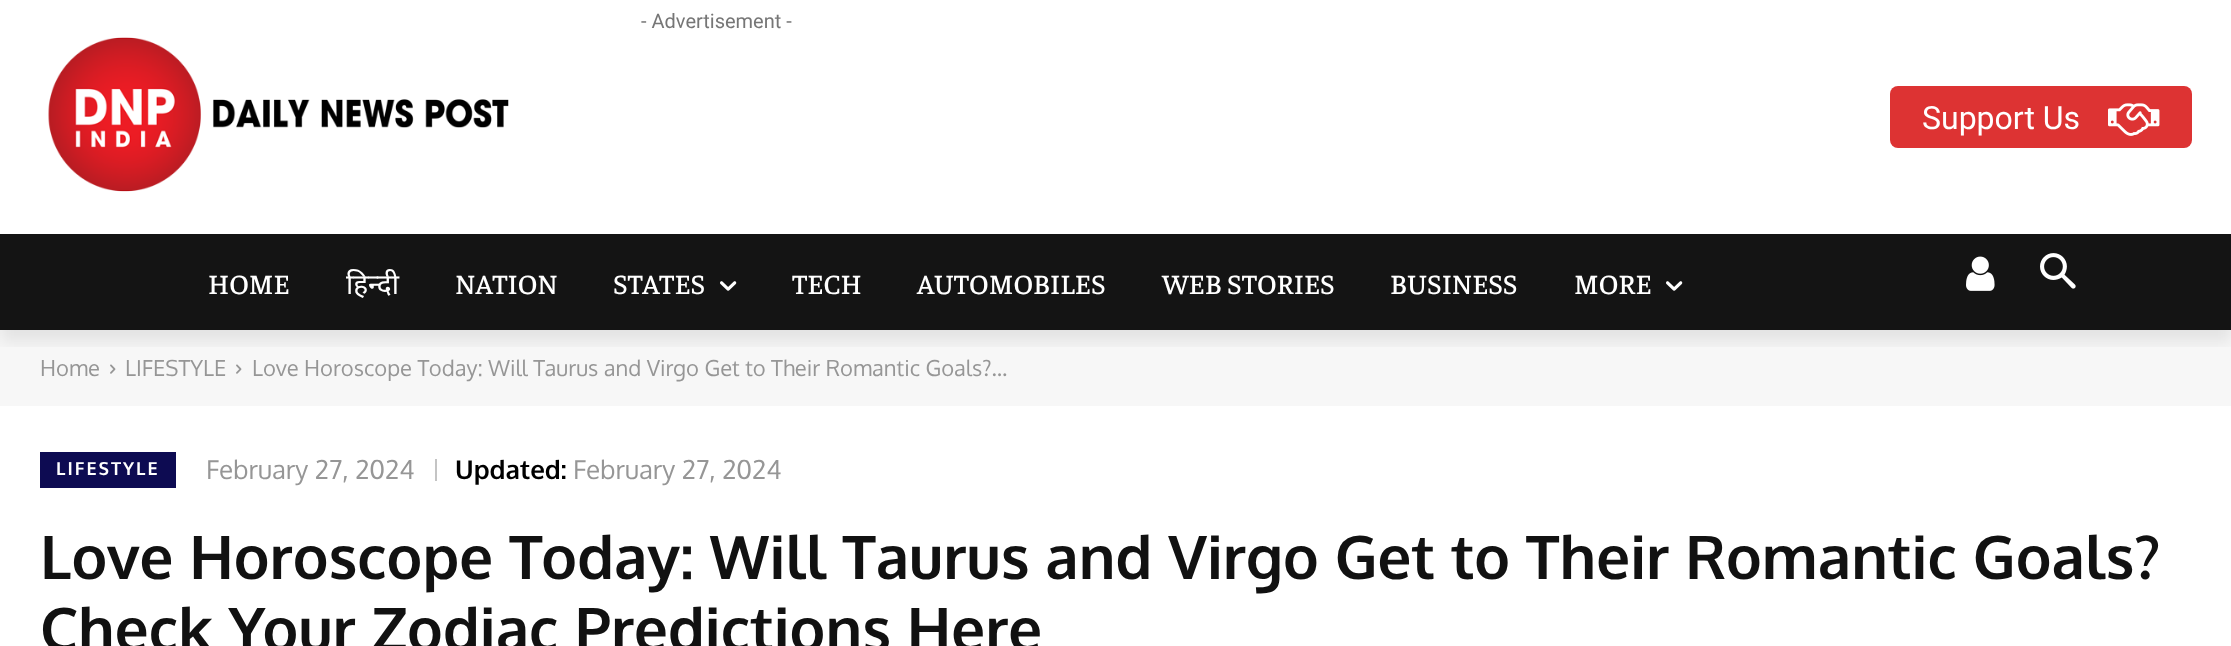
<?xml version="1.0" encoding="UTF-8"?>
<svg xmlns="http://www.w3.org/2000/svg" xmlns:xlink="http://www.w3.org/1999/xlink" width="2231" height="646">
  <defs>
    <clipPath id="clip1"><rect x="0" y="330" width="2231" height="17" /></clipPath>
  </defs>
  <rect width="100%" height="100%" fill="#ffffff" />
  <image x="48" y="37" width="461" height="155" xlink:href="image1.png" />
  <rect x="1890" y="86" width="302" height="62" rx="8" fill="#dd3333" />
  <image x="2108" y="103" width="52" height="33" xlink:href="image2.png" />
  <rect y="234" width="2231" height="96" fill="#141414" />
  <image x="1966" y="256" width="29" height="35" xlink:href="image4.png" />
  <rect y="330" width="2231" height="76" fill="#f7f7f7" />
  <image x="110" y="364" width="6" height="10" xlink:href="image6.png" />
  <image x="236" y="364" width="6" height="10" xlink:href="image6.png" />
  <g clip-path="url(#clip1)">
    <rect y="12" width="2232" height="330" fill="#000000" fill-opacity="0.08" filter="blur(8px)" />
  </g>
  <image x="720" y="281" width="17" height="10" xlink:href="image3.png" />
  <image x="1666" y="281" width="17" height="10" xlink:href="image3.png" />
  <image x="2040" y="253" width="36" height="36" xlink:href="image5.png" />
  <rect x="40" y="452" width="136" height="36" fill="#0d0b52" />
  <rect x="435" y="459" width="2" height="22" fill="#c4c4c4" />
  <text x="641" y="28" style="font-family: Roboto; font-size: 20px; fill: #767676">- Advertisement -</text>
  <text x="1922" y="129" style="font-family: Roboto; font-size: 32px; fill: #ffffff">Support Us</text>
  <text x="208" y="294" style="font-family: Faustina; font-size: 28px; font-weight: 500; fill: #ffffff">HOME</text>
  <text x="346" y="294" style="font-family: Noto Sans; font-size: 28px; fill: #ffffff">हिन्दी</text>
  <text x="455" y="294" style="font-family: Faustina; font-size: 28px; font-weight: 500; fill: #ffffff">NATION</text>
  <text x="613" y="294" style="font-family: Faustina; font-size: 28px; font-weight: 500; fill: #ffffff">STATES</text>
  <text x="792" y="294" style="font-family: Faustina; font-size: 28px; font-weight: 500; fill: #ffffff">TECH</text>
  <text x="917" y="294" style="font-family: Faustina; font-size: 28px; font-weight: 500; fill: #ffffff">AUTOMOBILES</text>
  <text x="1162" y="294" style="font-family: Faustina; font-size: 28px; font-weight: 500; fill: #ffffff">WEB STORIES</text>
  <text x="1390" y="294" style="font-family: Faustina; font-size: 28px; font-weight: 500; fill: #ffffff">BUSINESS</text>
  <text x="1574" y="294" style="font-family: Faustina; font-size: 28px; font-weight: 500; fill: #ffffff">MORE</text>
  <text x="40" y="376" style="font-family: Oxygen; font-size: 22px; fill: #969696">Home</text>
  <text x="125" y="376" style="font-family: Oxygen; font-size: 22px; fill: #969696">LIFESTYLE</text>
  <text x="252" y="376" style="font-family: Oxygen; font-size: 22px; fill: #969696">Love Horoscope Today: Will Taurus and Virgo Get to Their Romantic Goals?...</text>
  <text x="56" y="475" style="font-family: Oxygen; font-size: 18px; font-weight: bold; letter-spacing: 2px; fill: #ffffff">LIFESTYLE</text>
  <text x="206" y="479" style="font-family: Oxygen; font-size: 26px; fill: #969696">February 27, 2024</text>
  <text x="455" y="479" style="font-family: Oxygen; font-size: 26px; font-weight: bold; fill: #000000">Updated:</text>
  <text x="573" y="479" style="font-family: Oxygen; font-size: 26px; fill: #969696">February 27, 2024</text>
  <text x="40" y="579" style="font-family: Oxygen; font-size: 60px; font-weight: bold; fill: #111111">Love Horoscope Today: Will Taurus and Virgo Get to Their Romantic Goals?</text>
  <text x="40" y="651" style="font-family: Oxygen; font-size: 60px; font-weight: bold; fill: #111111">Check Your Zodiac Predictions Here</text>
</svg>
